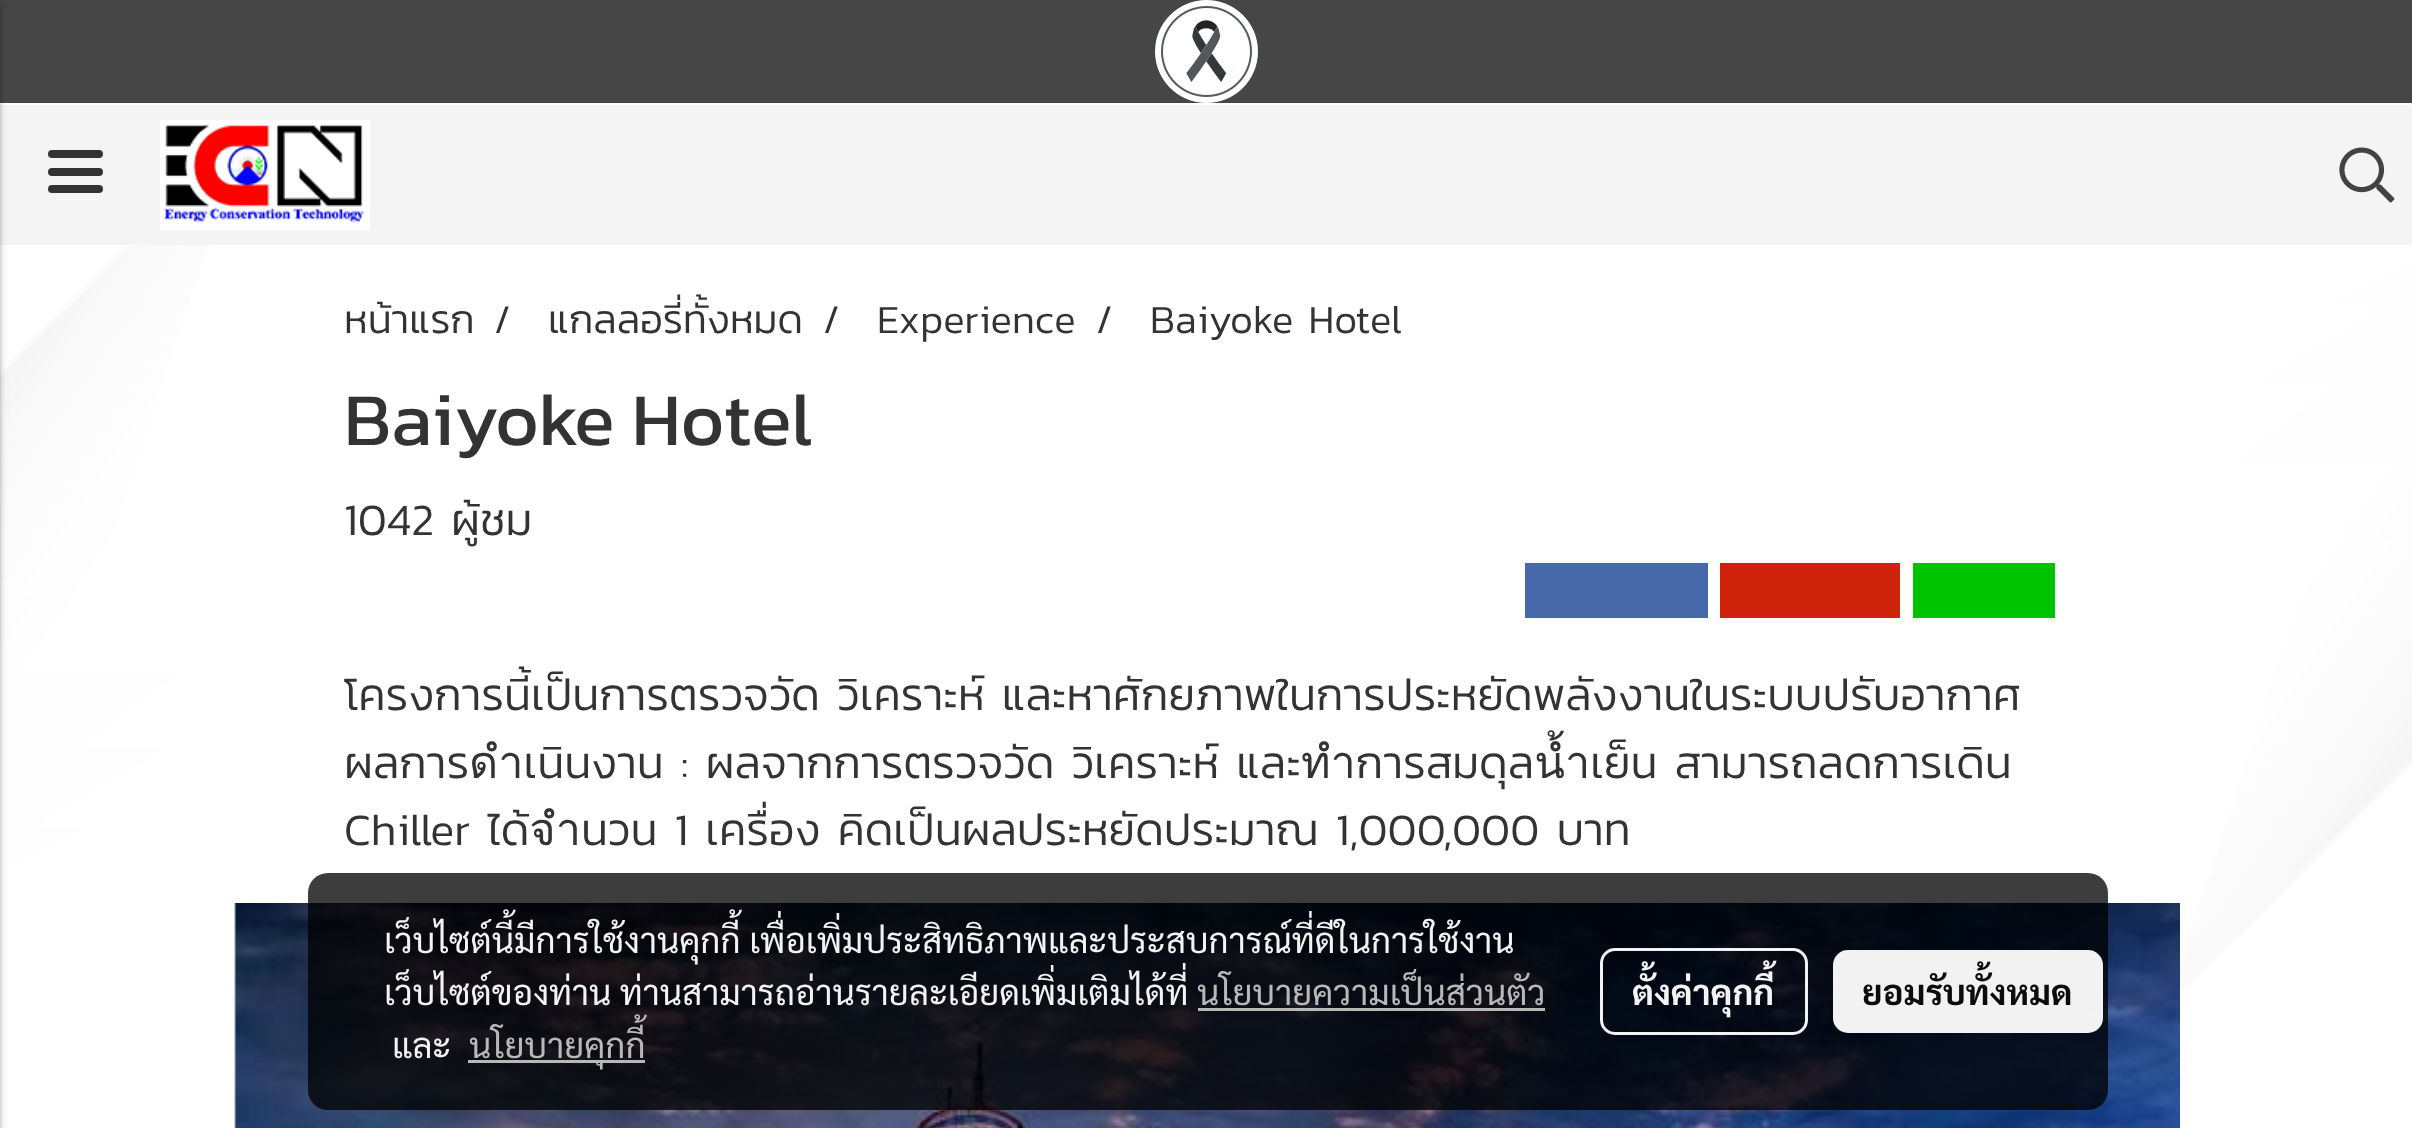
<?xml version="1.0" encoding="UTF-8"?>
<svg xmlns="http://www.w3.org/2000/svg" xmlns:xlink="http://www.w3.org/1999/xlink" width="2412" height="1128">
  <rect width="100%" height="100%" fill="#ffffff" />
  <image x="0" y="245" width="2412" height="754" xlink:href="image1.png" />
  <rect width="2412" height="103" fill="#464646" />
  <image x="1155" y="0" width="103" height="103" xlink:href="image2.png" />
  <rect y="105" width="2412" height="140" fill="#f4f4f4" />
  <rect x="-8" y="3" width="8" height="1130" fill="#000000" fill-opacity="0.24" filter="blur(2.5px)" />
  <rect x="-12" y="3" width="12" height="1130" fill="#000000" fill-opacity="0.12" filter="blur(4px)" />
  <rect x="48" y="168" width="55" height="8" rx="4" fill="#333333" />
  <rect x="48" y="150" width="55" height="8" rx="4" fill="#333333" />
  <rect x="48" y="185" width="55" height="8" rx="4" fill="#333333" />
  <image x="160" y="120" width="210" height="110" xlink:href="image3.png" />
  <image x="2339" y="147" width="56" height="56" xlink:href="image4.png" />
  <rect x="1525" y="563" width="183" height="55" fill="#4769a9" />
  <rect x="1720" y="563" width="180" height="55" fill="#ce220a" />
  <rect x="1913" y="563" width="142" height="55" fill="#00c300" />
  <image x="234" y="903" width="1946" height="225" xlink:href="image5.png" />
  <rect x="308" y="873" width="1800" height="237" rx="20" fill="#000000" fill-opacity="0.76" />
  <rect x="1198" y="1008" width="347" height="3" fill="#c2c2c2" fill-opacity="0.95" />
  <rect x="468" y="1060" width="177" height="3" fill="#c2c2c2" fill-opacity="0.95" />
  <rect x="1601.5" y="949.5" width="205" height="84" rx="13.5" fill="none" stroke="#ffffff" stroke-opacity="0.95" stroke-width="3" />
  <rect x="1833" y="950" width="270" height="83" rx="15" fill="#ffffff" fill-opacity="0.95" />
  <text x="344" y="333" style="font-family: Kanit; font-size: 40px; font-weight: 300; fill: #333333">หน้าแรก</text>
  <text x="494" y="333" style="font-family: Kanit; font-size: 40px; font-weight: 300; fill: #333333">/</text>
  <text x="548" y="333" style="font-family: Kanit; font-size: 40px; font-weight: 300; fill: #333333">แกลลอรี่ทั้งหมด</text>
  <text x="823" y="333" style="font-family: Kanit; font-size: 40px; font-weight: 300; fill: #333333">/</text>
  <text x="877" y="333" style="font-family: Kanit; font-size: 40px; font-weight: 300; fill: #333333">Experience</text>
  <text x="1096" y="333" style="font-family: Kanit; font-size: 40px; font-weight: 300; fill: #333333">/</text>
  <text x="1150" y="333" style="font-family: Kanit; font-size: 40px; font-weight: 300; fill: #333333">Baiyoke Hotel</text>
  <text x="344" y="445" style="font-family: Kanit; font-size: 75px; fill: #333333">Baiyoke Hotel</text>
  <text x="344" y="535" style="font-family: Kanit; font-size: 45px; font-weight: 300; fill: #333333">1042 ผู้ชม</text>
  <text x="344" y="710" style="font-family: Kanit; font-size: 45px; font-weight: 300; fill: #333333">โครงการนี้เป็นการตรวจวัด วิเคราะห์ และหาศักยภาพในการประหยัดพลังงานในระบบปรับอากาศ</text>
  <text x="344" y="778" style="font-family: Kanit; font-size: 45px; font-weight: 300; fill: #333333">ผลการดำเนินงาน : ผลจากการตรวจวัด วิเคราะห์ และทำการสมดุลน้ำเย็น สามารถลดการเดิน</text>
  <text x="344" y="845" style="font-family: Kanit; font-size: 45px; font-weight: 300; fill: #333333">Chiller ได้จำนวน 1 เครื่อง คิดเป็นผลประหยัดประมาณ 1,000,000 บาท</text>
  <text x="384" y="953" style="font-family: Sarabun; font-size: 35px; fill: #f3f3f3">เว็บไซต์นี้มีการใช้งานคุกกี้ เพื่อเพิ่มประสิทธิภาพและประสบการณ์ที่ดีในการใช้งาน</text>
  <text x="384" y="1005" style="font-family: Sarabun; font-size: 35px; fill: #f3f3f3">เว็บไซต์ของท่าน ท่านสามารถอ่านรายละเอียดเพิ่มเติมได้ที่</text>
  <text x="1197" y="1005" style="font-family: Sarabun; font-size: 35px; fill: #b9b9b9">นโยบายความเป็นส่วนตัว</text>
  <text x="392" y="1058" style="font-family: Sarabun; font-size: 35px; fill: #f3f3f3">และ</text>
  <text x="469" y="1058" style="font-family: Sarabun; font-size: 35px; fill: #b9b9b9">นโยบายคุกกี้</text>
  <text x="1632" y="1005" style="font-family: Sarabun; font-size: 35px; font-weight: bold; fill: #f3f3f3">ตั้งค่าคุกกี้</text>
  <text x="1862" y="1005" style="font-family: Sarabun; font-size: 35px; font-weight: bold; fill: #0c0c0c">ยอมรับทั้งหมด</text>
</svg>
